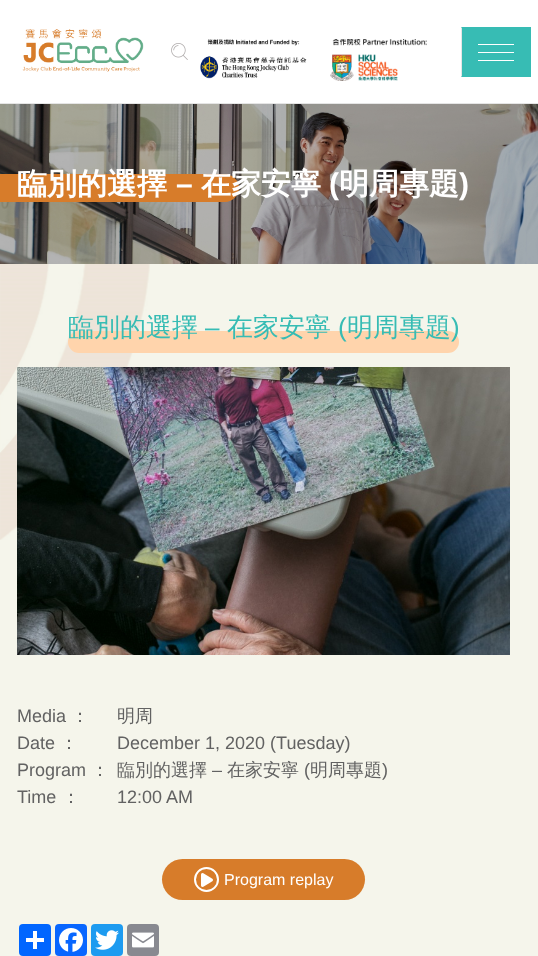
<?xml version="1.0" encoding="UTF-8"?>
<svg xmlns="http://www.w3.org/2000/svg" xmlns:xlink="http://www.w3.org/1999/xlink" width="538" height="956">
  <rect width="100%" height="100%" fill="#ffffff" />
  <rect y="103" width="538" height="1" fill="#e5e5e5" />
  <image x="22" y="29" width="122" height="43" xlink:href="image1.png" />
  <image x="171" y="43" width="17" height="17" xlink:href="image2.png" />
  <image x="200" y="39" width="107" height="40" xlink:href="image3.png" />
  <image x="330" y="39" width="97" height="42" xlink:href="image4.png" />
  <rect x="461" y="27" width="70" height="50" fill="#37bcb4" />
  <rect x="478" y="52" width="36" height="1" fill="#ffffff" />
  <path d="M 461 77 v -50 l 1 1 v 48 z" fill="#e5e5e5" />
  <rect x="478" y="44" width="36" height="1" fill="#ffffff" />
  <rect x="478" y="60" width="36" height="1" fill="#ffffff" />
  <image x="0" y="104" width="538" height="160" xlink:href="image5.png" />
  <path d="M 0 174 h 225 c 7.5 0 14 6.5 14 14 c 0 7.5 -6.5 14 -14 14 h -225 z" fill="#d77c2a" />
  <rect y="264" width="538" height="692" fill="#f5f5eb" />
  <image x="0" y="264" width="150" height="276" xlink:href="image6.png" />
  <rect x="68" y="331" width="391" height="22" rx="11" fill="#ffd4ac" />
  <image x="17" y="367" width="493" height="288" xlink:href="image7.png" />
  <rect x="162" y="859" width="203" height="41" rx="20.5" fill="#d77c2a" />
  <circle cx="206.5" cy="879.5" r="11.5" fill="none" stroke="#ffffff" stroke-width="2" />
  <image x="201" y="873" width="12" height="14" xlink:href="image8.png" />
  <rect x="19" y="924" width="32" height="32" rx="4" fill="#0166ff" />
  <rect x="33" y="931" width="4" height="18" fill="#ffffff" />
  <rect x="26" y="938" width="18" height="4" fill="#ffffff" />
  <rect x="55" y="924" width="32" height="32" rx="4" fill="#0866ff" />
  <image x="59" y="928" width="24" height="24" xlink:href="image9.png" />
  <rect x="91" y="924" width="32" height="32" rx="4" fill="#1d9bf0" />
  <image x="95" y="930" width="24" height="20" xlink:href="image10.png" />
  <rect x="127" y="924" width="32" height="32" rx="4" fill="#888990" />
  <image x="132" y="932" width="22" height="16" xlink:href="image11.png" />
  <text x="17" y="194" style="font-family: WenQuanYi Zen Hei; font-size: 30px; font-weight: bold; fill: #ffffff">臨別的選擇</text>
  <text x="201" y="194" style="font-family: WenQuanYi Zen Hei; font-size: 30px; font-weight: bold; fill: #ffffff">在家安寧</text>
  <text x="329" y="194" style="font-family: Liberation Sans; font-size: 30px; font-weight: bold; fill: #ffffff">(</text>
  <text x="339" y="194" style="font-family: WenQuanYi Zen Hei; font-size: 30px; font-weight: bold; fill: #ffffff">明周專題</text>
  <text x="459" y="194" style="font-family: Liberation Sans; font-size: 30px; font-weight: bold; fill: #ffffff">)</text>
  <text x="176" y="194" style="font-family: Liberation Sans; font-size: 30px; font-weight: bold; fill: #ffffff">–</text>
  <text x="68" y="336" style="font-family: WenQuanYi Zen Hei; font-size: 26px; font-weight: 500; fill: #37bcb4">臨別的選擇</text>
  <text x="205" y="336" style="font-family: Liberation Sans; font-size: 26px; fill: #37bcb4">–</text>
  <text x="227" y="336" style="font-family: WenQuanYi Zen Hei; font-size: 26px; font-weight: 500; fill: #37bcb4">在家安寧</text>
  <text x="338" y="336" style="font-family: Liberation Sans; font-size: 26px; fill: #37bcb4">(</text>
  <text x="347" y="336" style="font-family: WenQuanYi Zen Hei; font-size: 26px; font-weight: 500; fill: #37bcb4">明周專題</text>
  <text x="451" y="336" style="font-family: Liberation Sans; font-size: 26px; fill: #37bcb4">)</text>
  <text x="17" y="722" style="font-family: Liberation Sans; font-size: 18px; fill: #626262">Media</text>
  <text x="71" y="722" style="font-family: WenQuanYi Zen Hei; font-size: 18px; font-weight: 500; fill: #626262">：</text>
  <text x="117" y="722" style="font-family: WenQuanYi Zen Hei; font-size: 18px; font-weight: 500; fill: #626262">明周</text>
  <text x="17" y="749" style="font-family: Liberation Sans; font-size: 18px; fill: #626262">Date</text>
  <text x="60" y="749" style="font-family: WenQuanYi Zen Hei; font-size: 18px; font-weight: 500; fill: #626262">：</text>
  <text x="117" y="749" style="font-family: Liberation Sans; font-size: 18px; fill: #626262">December 1, 2020 (Tuesday)</text>
  <text x="17" y="776" style="font-family: Liberation Sans; font-size: 18px; fill: #626262">Program</text>
  <text x="91" y="776" style="font-family: WenQuanYi Zen Hei; font-size: 18px; font-weight: 500; fill: #626262">：</text>
  <text x="117" y="776" style="font-family: WenQuanYi Zen Hei; font-size: 18px; font-weight: 500; fill: #626262">臨別的選擇</text>
  <text x="212" y="776" style="font-family: Liberation Sans; font-size: 18px; fill: #626262">–</text>
  <text x="227" y="776" style="font-family: WenQuanYi Zen Hei; font-size: 18px; font-weight: 500; fill: #626262">在家安寧</text>
  <text x="304" y="776" style="font-family: Liberation Sans; font-size: 18px; fill: #626262">(</text>
  <text x="310" y="776" style="font-family: WenQuanYi Zen Hei; font-size: 18px; font-weight: 500; fill: #626262">明周專題</text>
  <text x="382" y="776" style="font-family: Liberation Sans; font-size: 18px; fill: #626262">)</text>
  <text x="17" y="803" style="font-family: Liberation Sans; font-size: 18px; fill: #626262">Time</text>
  <text x="62" y="803" style="font-family: WenQuanYi Zen Hei; font-size: 18px; font-weight: 500; fill: #626262">：</text>
  <text x="117" y="803" style="font-family: Liberation Sans; font-size: 18px; fill: #626262">12:00 AM</text>
  <text x="224" y="885" style="font-family: Liberation Sans; font-size: 16px; fill: #ffffff">Program replay</text>
</svg>
